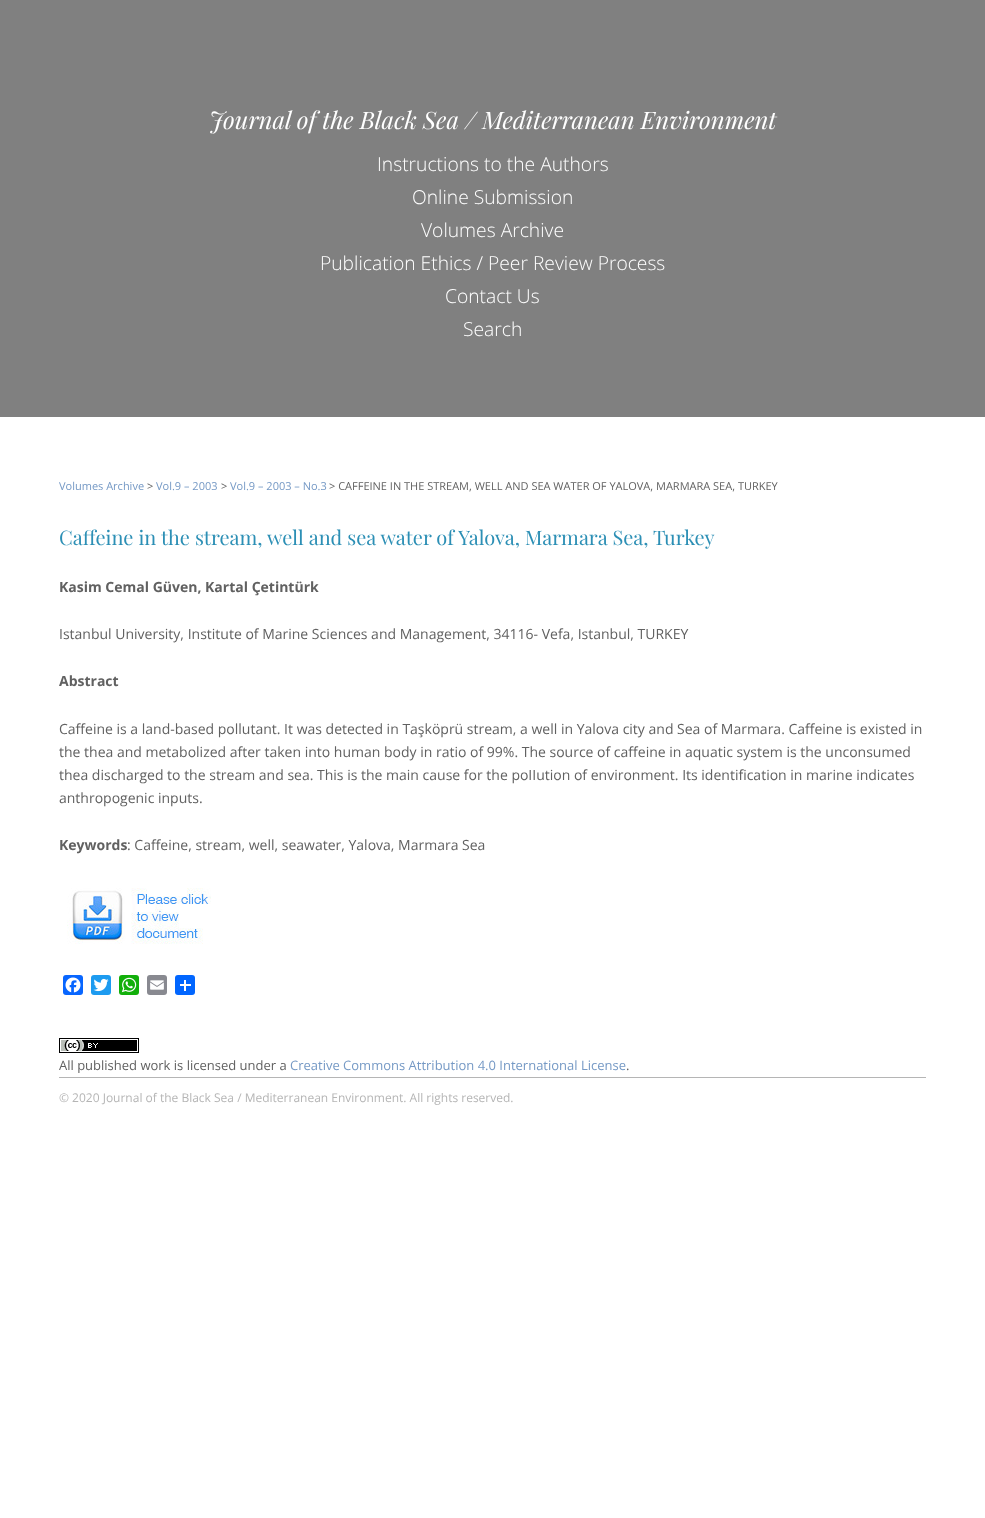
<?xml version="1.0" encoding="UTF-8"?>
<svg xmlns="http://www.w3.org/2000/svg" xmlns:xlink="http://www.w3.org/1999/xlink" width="985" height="1518">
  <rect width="100%" height="100%" fill="#ffffff" />
  <rect width="985" height="417" fill="#808080" />
  <image x="67" y="888" width="144" height="56" xlink:href="image1.png" />
  <rect x="63" y="975" width="20" height="20" rx="3" fill="#0866ff" />
  <image x="65" y="977" width="16" height="16" xlink:href="image2.png" />
  <rect x="91" y="975" width="20" height="20" rx="3" fill="#1d9bf0" />
  <image x="93" y="978" width="16" height="14" xlink:href="image3.png" />
  <rect x="119" y="975" width="20" height="20" rx="3" fill="#12af0a" />
  <image x="121" y="977" width="16" height="16" xlink:href="image4.png" />
  <rect x="147" y="975" width="20" height="20" rx="3" fill="#888990" />
  <image x="150" y="980" width="14" height="10" xlink:href="image5.png" />
  <rect x="175" y="975" width="20" height="20" rx="3" fill="#0166ff" />
  <rect x="184" y="980" width="2" height="11" fill="#ffffff" />
  <rect x="180" y="984" width="11" height="2" fill="#ffffff" />
  <image x="59" y="1038" width="80" height="15" xlink:href="image6.png" />
  <rect x="59" y="1077" width="867" height="1" fill="#b5b5b5" />
  <text x="209" y="129" style="font-family: Playfair Display; font-size: 24px; font-style: italic; fill: #ffffff">Journal of the Black Sea / Mediterranean Environment</text>
  <text x="377" y="171" style="font-family: Open Sans; font-size: 19.25px; font-weight: 300; fill: #ffffff">Instructions to the Authors</text>
  <text x="412" y="204" style="font-family: Open Sans; font-size: 19.25px; font-weight: 300; fill: #ffffff">Online Submission</text>
  <text x="421" y="237" style="font-family: Open Sans; font-size: 19.25px; font-weight: 300; fill: #ffffff">Volumes Archive</text>
  <text x="320" y="270" style="font-family: Open Sans; font-size: 19.25px; font-weight: 300; fill: #ffffff">Publication Ethics / Peer Review Process</text>
  <text x="445" y="303" style="font-family: Open Sans; font-size: 19.25px; font-weight: 300; fill: #ffffff">Contact Us</text>
  <text x="463" y="336" style="font-family: Open Sans; font-size: 19.25px; font-weight: 300; fill: #ffffff">Search</text>
  <text x="59" y="490" style="font-family: Open Sans; font-size: 11px; fill: #7599c5">Volumes Archive</text>
  <text x="147" y="490" style="font-family: Open Sans; font-size: 11px; fill: #616161">&gt;</text>
  <text x="156" y="490" style="font-family: Open Sans; font-size: 11px; fill: #7599c5">Vol.9 – 2003</text>
  <text x="221" y="490" style="font-family: Open Sans; font-size: 11px; fill: #616161">&gt;</text>
  <text x="230" y="490" style="font-family: Open Sans; font-size: 11px; fill: #7599c5">Vol.9 – 2003 – No.3</text>
  <text x="329" y="490" style="font-family: Open Sans; font-size: 11px; fill: #616161">&gt; CAFFEINE IN THE STREAM, WELL AND SEA WATER OF YALOVA, MARMARA SEA, TURKEY</text>
  <text x="59" y="545" style="font-family: Playfair Display; font-size: 20px; fill: #2c8fb5">Caffeine in the stream, well and sea water of Yalova, Marmara Sea, Turkey</text>
  <text x="59" y="592" style="font-family: Open Sans; font-size: 14px; font-weight: bold; fill: #616161">Kasim Cemal Güven, Kartal Çetintürk</text>
  <text x="59" y="639" style="font-family: Open Sans; font-size: 14px; fill: #616161">Istanbul University, Institute of Marine Sciences and Management, 34116- Vefa, Istanbul, TURKEY</text>
  <text x="59" y="686" style="font-family: Open Sans; font-size: 14px; font-weight: bold; fill: #616161">Abstract</text>
  <text x="59" y="734" style="font-family: Open Sans; font-size: 14px; fill: #616161">Caffeine is a land-based pollutant. It was detected in Taşköprü stream, a well in Yalova city and Sea of Marmara. Caffeine is existed in</text>
  <text x="59" y="757" style="font-family: Open Sans; font-size: 14px; fill: #616161">the thea and metabolized after taken into human body in ratio of 99%. The source of caffeine in aquatic system is the unconsumed</text>
  <text x="59" y="780" style="font-family: Open Sans; font-size: 14px; fill: #616161">thea discharged to the stream and sea. This is the main cause for the poIIution of environment. Its identification in marine indicates</text>
  <text x="59" y="803" style="font-family: Open Sans; font-size: 14px; fill: #616161">anthropogenic inputs.</text>
  <text x="59" y="850" style="font-family: Open Sans; font-size: 14px; font-weight: bold; fill: #616161">Keywords</text>
  <text x="127" y="850" style="font-family: Open Sans; font-size: 14px; fill: #616161">: Caffeine, stream, well, seawater, Yalova, Marmara Sea</text>
  <text x="59" y="1070" style="font-family: Open Sans; font-size: 13px; fill: #616161">All published work is licensed under a</text>
  <text x="290" y="1070" style="font-family: Open Sans; font-size: 13px; fill: #7599c5">Creative Commons Attribution 4.0 International License</text>
  <text x="626" y="1070" style="font-family: Open Sans; font-size: 13px; fill: #616161">.</text>
  <text x="59" y="1102" style="font-family: Open Sans; font-size: 12px; fill: #b5b5b5">© 2020 Journal of the Black Sea / Mediterranean Environment. All rights reserved.</text>
</svg>
